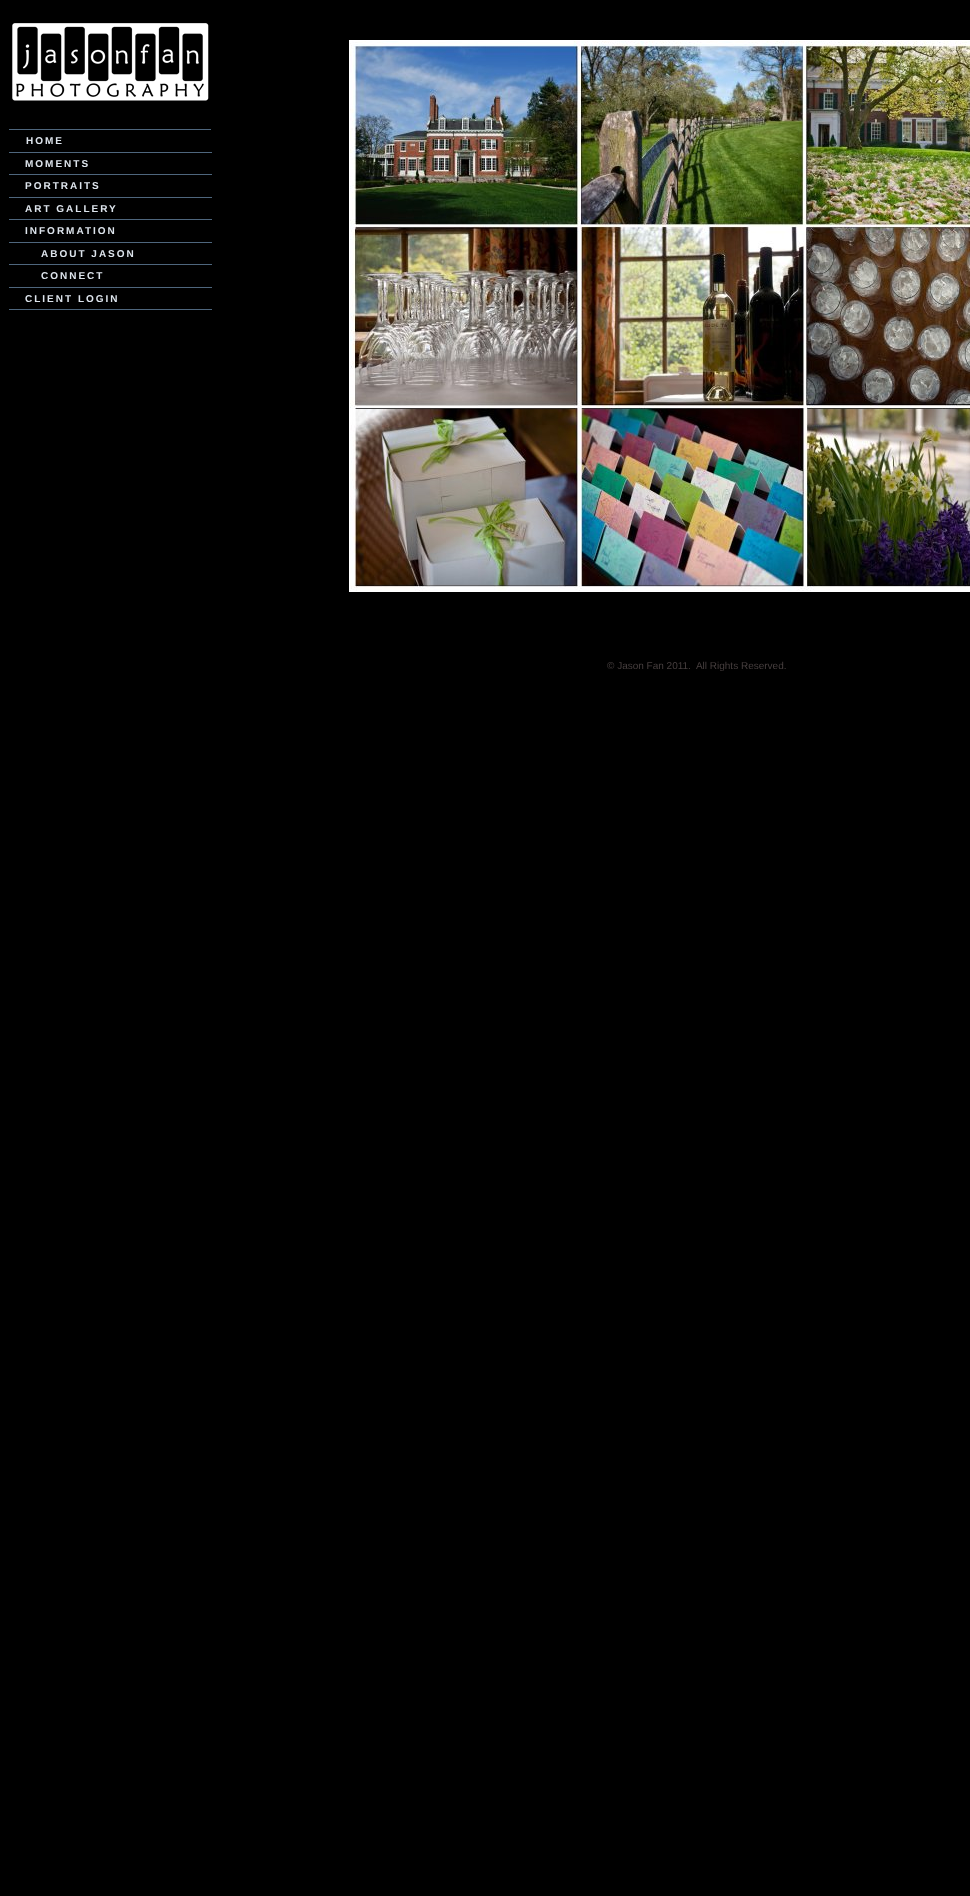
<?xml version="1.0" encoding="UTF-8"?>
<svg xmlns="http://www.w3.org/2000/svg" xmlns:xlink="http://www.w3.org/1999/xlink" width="970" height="1896">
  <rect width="100%" height="100%" fill="#000000" />
  <image x="12" y="23" width="197" height="78" xlink:href="image1.png" />
  <rect x="8" y="129" width="204" height="1" fill="#4e667d" />
  <rect x="211" y="129" width="1" height="1" fill="#000000" />
  <rect x="8" y="152" width="204" height="1" fill="#4e667d" />
  <rect x="8" y="129" width="1" height="24" fill="#000000" />
  <rect x="8" y="174" width="204" height="1" fill="#4e667d" />
  <rect x="8" y="174" width="1" height="1" fill="#000000" />
  <rect x="8" y="197" width="204" height="1" fill="#4e667d" />
  <rect x="8" y="197" width="1" height="1" fill="#000000" />
  <rect x="8" y="219" width="204" height="1" fill="#4e667d" />
  <rect x="8" y="219" width="1" height="1" fill="#000000" />
  <rect x="8" y="242" width="204" height="1" fill="#4e667d" />
  <rect x="8" y="242" width="1" height="1" fill="#000000" />
  <rect x="8" y="264" width="204" height="1" fill="#4e667d" />
  <rect x="8" y="264" width="1" height="1" fill="#000000" />
  <rect x="8" y="287" width="204" height="1" fill="#4e667d" />
  <rect x="8" y="287" width="1" height="1" fill="#000000" />
  <rect x="8" y="309" width="204" height="1" fill="#4e667d" />
  <rect x="8" y="309" width="1" height="1" fill="#000000" />
  <rect x="349.5" y="40.5" width="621" height="551" fill="none" stroke="#ffffff" />
  <image x="350" y="41" width="620" height="550" xlink:href="image2.png" />
  <text x="26" y="144" style="font-family: Liberation Sans; font-size: 10px; font-weight: bold; letter-spacing: 2px; fill: #dde4ec">HOME</text>
  <text x="25" y="167" style="font-family: Liberation Sans; font-size: 10px; font-weight: bold; letter-spacing: 2px; fill: #dde4ec">MOMENTS</text>
  <text x="25" y="189" style="font-family: Liberation Sans; font-size: 10px; font-weight: bold; letter-spacing: 2px; fill: #dde4ec">PORTRAITS</text>
  <text x="25" y="212" style="font-family: Liberation Sans; font-size: 10px; font-weight: bold; letter-spacing: 2px; fill: #dde4ec">ART GALLERY</text>
  <text x="25" y="234" style="font-family: Liberation Sans; font-size: 10px; font-weight: bold; letter-spacing: 2px; fill: #dde4ec">INFORMATION</text>
  <text x="41" y="257" style="font-family: Liberation Sans; font-size: 10px; font-weight: bold; letter-spacing: 2px; fill: #dde4ec">ABOUT JASON</text>
  <text x="41" y="279" style="font-family: Liberation Sans; font-size: 10px; font-weight: bold; letter-spacing: 2px; fill: #dde4ec">CONNECT</text>
  <text x="25" y="302" style="font-family: Liberation Sans; font-size: 10px; font-weight: bold; letter-spacing: 2px; fill: #dde4ec">CLIENT LOGIN</text>
  <text x="607" y="669" style="font-family: Liberation Sans; font-size: 10px; fill: #473f3f" xml:space="preserve">© Jason Fan 2011.  All Rights Reserved.</text>
</svg>
